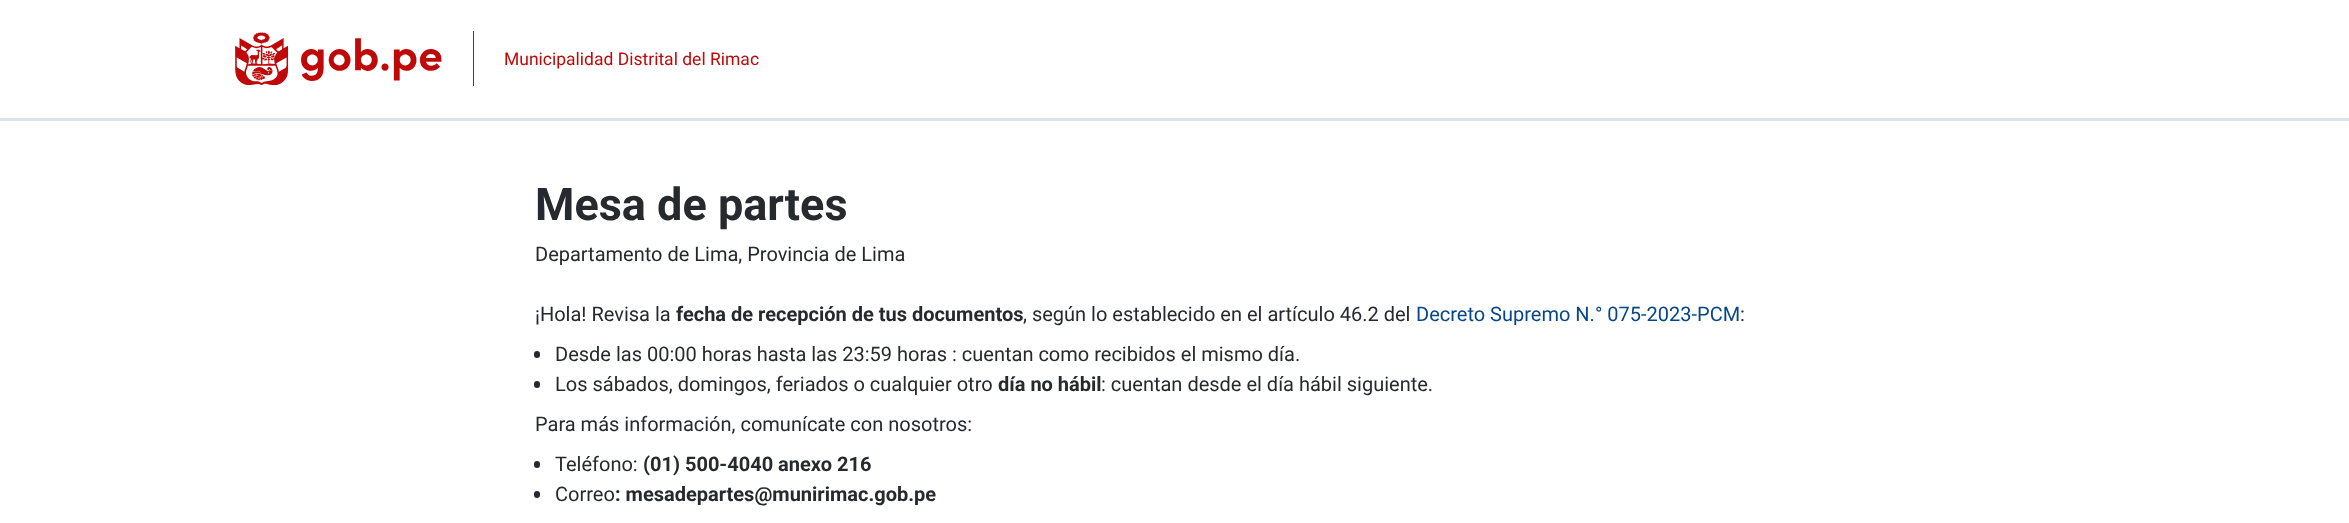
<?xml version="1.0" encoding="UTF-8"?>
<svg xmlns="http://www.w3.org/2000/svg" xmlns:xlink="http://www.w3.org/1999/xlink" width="2349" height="523">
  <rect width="100%" height="100%" fill="#ffffff" />
  <rect y="118" width="2349" height="3" fill="#dee3ea" />
  <rect x="473" y="31" width="1" height="55" fill="#bf0909" />
  <image x="235" y="32" width="207" height="54" xlink:href="image1.png" />
  <rect x="534" y="351" width="6" height="7" rx="3" fill="#26292e" />
  <rect x="534" y="381" width="6" height="7" rx="3" fill="#26292e" />
  <rect x="534" y="461" width="6" height="7" rx="3" fill="#26292e" />
  <rect x="534" y="491" width="6" height="7" rx="3" fill="#26292e" />
  <text x="504" y="65" style="font-family: Roboto; font-size: 17.5px; fill: #bf0909">Municipalidad Distrital del Rimac</text>
  <text x="535" y="220" style="font-family: Roboto; font-size: 45px; font-weight: bold; fill: #26292e">Mesa de partes</text>
  <text x="535" y="261" style="font-family: Roboto; font-size: 20px; fill: #26292e">Departamento de Lima, Provincia de Lima</text>
  <text x="535" y="321" style="font-family: Roboto; font-size: 20px; fill: #26292e">¡Hola! Revisa la</text>
  <text x="676" y="321" style="font-family: Roboto; font-size: 20px; font-weight: bold; fill: #26292e">fecha de recepción de tus documentos</text>
  <text x="1023" y="321" style="font-family: Roboto; font-size: 20px; fill: #26292e">, según lo establecido en el artículo 46.2 del</text>
  <text x="1416" y="321" style="font-family: Roboto; font-size: 20px; fill: #074787">Decreto Supremo N.° 075-2023-PCM</text>
  <text x="1740" y="321" style="font-family: Roboto; font-size: 20px; fill: #26292e">:</text>
  <text x="555" y="361" style="font-family: Roboto; font-size: 20px; fill: #26292e">Desde las 00:00 horas hasta las 23:59 horas : cuentan como recibidos el mismo día.</text>
  <text x="555" y="391" style="font-family: Roboto; font-size: 20px; fill: #26292e">Los sábados, domingos, feriados o cualquier otro</text>
  <text x="998" y="391" style="font-family: Roboto; font-size: 20px; font-weight: bold; fill: #26292e">día no hábil</text>
  <text x="1101" y="391" style="font-family: Roboto; font-size: 20px; fill: #26292e">: cuentan desde el día hábil siguiente.</text>
  <text x="535" y="431" style="font-family: Roboto; font-size: 20px; fill: #26292e">Para más información, comunícate con nosotros:</text>
  <text x="555" y="471" style="font-family: Roboto; font-size: 20px; fill: #26292e">Teléfono:</text>
  <text x="643" y="471" style="font-family: Roboto; font-size: 20px; font-weight: bold; fill: #26292e">(01) 500-4040 anexo 216</text>
  <text x="555" y="501" style="font-family: Roboto; font-size: 20px; fill: #26292e">Correo</text>
  <text x="615" y="501" style="font-family: Roboto; font-size: 20px; font-weight: bold; fill: #26292e">: mesadepartes@munirimac.gob.pe</text>
</svg>
